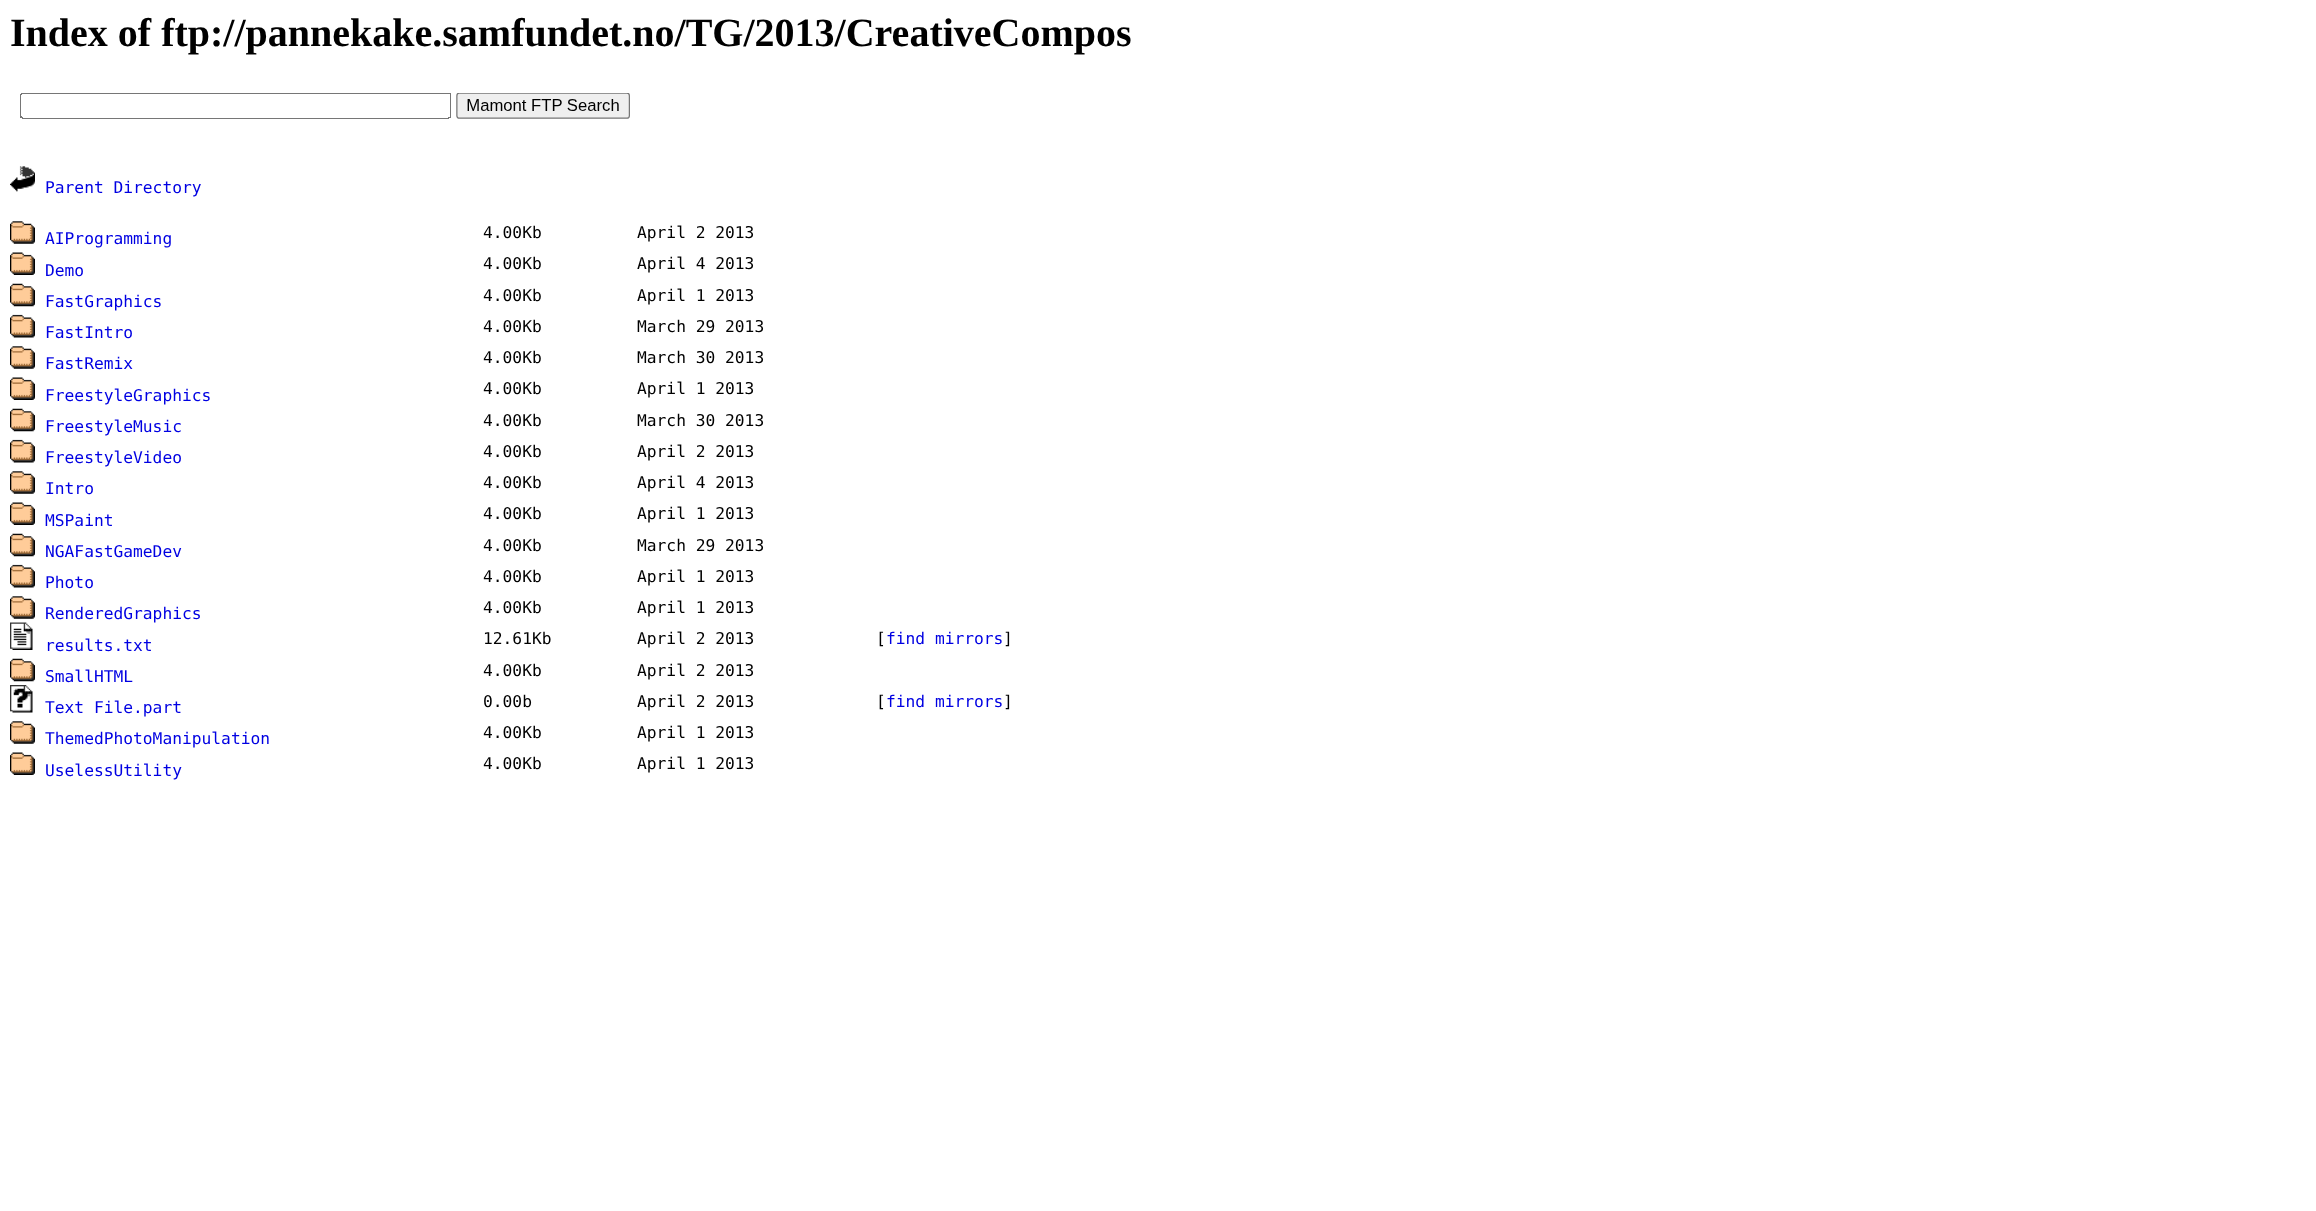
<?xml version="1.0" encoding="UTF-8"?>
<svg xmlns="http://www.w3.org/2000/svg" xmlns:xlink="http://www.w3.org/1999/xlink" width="2316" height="1211">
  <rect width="100%" height="100%" fill="#ffffff" />
  <image x="20" y="93" width="610" height="26" xlink:href="image1.png" />
  <image x="10" y="166" width="25" height="26" xlink:href="image2.png" />
  <image x="10" y="221" width="25" height="23" xlink:href="image3.png" />
  <image x="10" y="252" width="25" height="23" xlink:href="image4.png" />
  <image x="10" y="283" width="25" height="24" xlink:href="image5.png" />
  <image x="10" y="314" width="25" height="24" xlink:href="image6.png" />
  <image x="10" y="346" width="25" height="23" xlink:href="image3.png" />
  <image x="10" y="377" width="25" height="23" xlink:href="image4.png" />
  <image x="10" y="408" width="25" height="24" xlink:href="image7.png" />
  <image x="10" y="439" width="25" height="24" xlink:href="image6.png" />
  <image x="10" y="471" width="25" height="23" xlink:href="image3.png" />
  <image x="10" y="502" width="25" height="23" xlink:href="image4.png" />
  <image x="10" y="533" width="25" height="24" xlink:href="image7.png" />
  <image x="10" y="564" width="25" height="24" xlink:href="image6.png" />
  <image x="10" y="596" width="25" height="23" xlink:href="image3.png" />
  <image x="10" y="622" width="23" height="28" xlink:href="image8.png" />
  <image x="10" y="658" width="25" height="24" xlink:href="image7.png" />
  <image x="10" y="685" width="23" height="28" xlink:href="image9.png" />
  <image x="10" y="721" width="25" height="23" xlink:href="image3.png" />
  <image x="10" y="752" width="25" height="23" xlink:href="image4.png" />
  <text x="10" y="46" style="font-family: Liberation Serif; font-size: 40px; font-weight: bold; fill: #000000">Index of ftp://pannekake.samfundet.no/TG/2013/CreativeCompos</text>
  <text x="45" y="193" style="font-family: DejaVu Sans Mono; font-size: 16.25px; fill: #0000e2">Parent Directory</text>
  <text x="45" y="244" style="font-family: DejaVu Sans Mono; font-size: 16.25px; fill: #0000e2">AIProgramming</text>
  <text x="483" y="238" style="font-family: DejaVu Sans Mono; font-size: 16.25px; fill: #000000">4.00Kb</text>
  <text x="637" y="238" style="font-family: DejaVu Sans Mono; font-size: 16.25px; fill: #000000">April 2 2013</text>
  <text x="45" y="276" style="font-family: DejaVu Sans Mono; font-size: 16.25px; fill: #0000e2">Demo</text>
  <text x="483" y="269" style="font-family: DejaVu Sans Mono; font-size: 16.25px; fill: #000000">4.00Kb</text>
  <text x="637" y="269" style="font-family: DejaVu Sans Mono; font-size: 16.25px; fill: #000000">April 4 2013</text>
  <text x="45" y="307" style="font-family: DejaVu Sans Mono; font-size: 16.25px; fill: #0000e2">FastGraphics</text>
  <text x="483" y="301" style="font-family: DejaVu Sans Mono; font-size: 16.25px; fill: #000000">4.00Kb</text>
  <text x="637" y="301" style="font-family: DejaVu Sans Mono; font-size: 16.25px; fill: #000000">April 1 2013</text>
  <text x="45" y="338" style="font-family: DejaVu Sans Mono; font-size: 16.25px; fill: #0000e2">FastIntro</text>
  <text x="483" y="332" style="font-family: DejaVu Sans Mono; font-size: 16.25px; fill: #000000">4.00Kb</text>
  <text x="637" y="332" style="font-family: DejaVu Sans Mono; font-size: 16.25px; fill: #000000">March 29 2013</text>
  <text x="45" y="369" style="font-family: DejaVu Sans Mono; font-size: 16.25px; fill: #0000e2">FastRemix</text>
  <text x="483" y="363" style="font-family: DejaVu Sans Mono; font-size: 16.25px; fill: #000000">4.00Kb</text>
  <text x="637" y="363" style="font-family: DejaVu Sans Mono; font-size: 16.25px; fill: #000000">March 30 2013</text>
  <text x="45" y="401" style="font-family: DejaVu Sans Mono; font-size: 16.25px; fill: #0000e2">FreestyleGraphics</text>
  <text x="483" y="394" style="font-family: DejaVu Sans Mono; font-size: 16.25px; fill: #000000">4.00Kb</text>
  <text x="637" y="394" style="font-family: DejaVu Sans Mono; font-size: 16.25px; fill: #000000">April 1 2013</text>
  <text x="45" y="432" style="font-family: DejaVu Sans Mono; font-size: 16.25px; fill: #0000e2">FreestyleMusic</text>
  <text x="483" y="426" style="font-family: DejaVu Sans Mono; font-size: 16.25px; fill: #000000">4.00Kb</text>
  <text x="637" y="426" style="font-family: DejaVu Sans Mono; font-size: 16.25px; fill: #000000">March 30 2013</text>
  <text x="45" y="463" style="font-family: DejaVu Sans Mono; font-size: 16.25px; fill: #0000e2">FreestyleVideo</text>
  <text x="483" y="457" style="font-family: DejaVu Sans Mono; font-size: 16.25px; fill: #000000">4.00Kb</text>
  <text x="637" y="457" style="font-family: DejaVu Sans Mono; font-size: 16.25px; fill: #000000">April 2 2013</text>
  <text x="45" y="494" style="font-family: DejaVu Sans Mono; font-size: 16.25px; fill: #0000e2">Intro</text>
  <text x="483" y="488" style="font-family: DejaVu Sans Mono; font-size: 16.25px; fill: #000000">4.00Kb</text>
  <text x="637" y="488" style="font-family: DejaVu Sans Mono; font-size: 16.25px; fill: #000000">April 4 2013</text>
  <text x="45" y="526" style="font-family: DejaVu Sans Mono; font-size: 16.25px; fill: #0000e2">MSPaint</text>
  <text x="483" y="519" style="font-family: DejaVu Sans Mono; font-size: 16.25px; fill: #000000">4.00Kb</text>
  <text x="637" y="519" style="font-family: DejaVu Sans Mono; font-size: 16.25px; fill: #000000">April 1 2013</text>
  <text x="45" y="557" style="font-family: DejaVu Sans Mono; font-size: 16.25px; fill: #0000e2">NGAFastGameDev</text>
  <text x="483" y="551" style="font-family: DejaVu Sans Mono; font-size: 16.25px; fill: #000000">4.00Kb</text>
  <text x="637" y="551" style="font-family: DejaVu Sans Mono; font-size: 16.25px; fill: #000000">March 29 2013</text>
  <text x="45" y="588" style="font-family: DejaVu Sans Mono; font-size: 16.25px; fill: #0000e2">Photo</text>
  <text x="483" y="582" style="font-family: DejaVu Sans Mono; font-size: 16.25px; fill: #000000">4.00Kb</text>
  <text x="637" y="582" style="font-family: DejaVu Sans Mono; font-size: 16.25px; fill: #000000">April 1 2013</text>
  <text x="45" y="619" style="font-family: DejaVu Sans Mono; font-size: 16.25px; fill: #0000e2">RenderedGraphics</text>
  <text x="483" y="613" style="font-family: DejaVu Sans Mono; font-size: 16.25px; fill: #000000">4.00Kb</text>
  <text x="637" y="613" style="font-family: DejaVu Sans Mono; font-size: 16.25px; fill: #000000">April 1 2013</text>
  <text x="45" y="651" style="font-family: DejaVu Sans Mono; font-size: 16.25px; fill: #0000e2">results.txt</text>
  <text x="483" y="644" style="font-family: DejaVu Sans Mono; font-size: 16.25px; fill: #000000">12.61Kb</text>
  <text x="637" y="644" style="font-family: DejaVu Sans Mono; font-size: 16.25px; fill: #000000">April 2 2013</text>
  <text x="876" y="644" style="font-family: DejaVu Sans Mono; font-size: 16.25px; fill: #000000">[</text>
  <text x="886" y="644" style="font-family: DejaVu Sans Mono; font-size: 16.25px; fill: #0000e2">find mirrors</text>
  <text x="1003" y="644" style="font-family: DejaVu Sans Mono; font-size: 16.25px; fill: #000000">]</text>
  <text x="45" y="682" style="font-family: DejaVu Sans Mono; font-size: 16.25px; fill: #0000e2">SmallHTML</text>
  <text x="483" y="676" style="font-family: DejaVu Sans Mono; font-size: 16.25px; fill: #000000">4.00Kb</text>
  <text x="637" y="676" style="font-family: DejaVu Sans Mono; font-size: 16.25px; fill: #000000">April 2 2013</text>
  <text x="45" y="713" style="font-family: DejaVu Sans Mono; font-size: 16.25px; fill: #0000e2">Text File.part</text>
  <text x="483" y="707" style="font-family: DejaVu Sans Mono; font-size: 16.25px; fill: #000000">0.00b</text>
  <text x="637" y="707" style="font-family: DejaVu Sans Mono; font-size: 16.25px; fill: #000000">April 2 2013</text>
  <text x="876" y="707" style="font-family: DejaVu Sans Mono; font-size: 16.25px; fill: #000000">[</text>
  <text x="886" y="707" style="font-family: DejaVu Sans Mono; font-size: 16.25px; fill: #0000e2">find mirrors</text>
  <text x="1003" y="707" style="font-family: DejaVu Sans Mono; font-size: 16.25px; fill: #000000">]</text>
  <text x="45" y="744" style="font-family: DejaVu Sans Mono; font-size: 16.25px; fill: #0000e2">ThemedPhotoManipulation</text>
  <text x="483" y="738" style="font-family: DejaVu Sans Mono; font-size: 16.25px; fill: #000000">4.00Kb</text>
  <text x="637" y="738" style="font-family: DejaVu Sans Mono; font-size: 16.25px; fill: #000000">April 1 2013</text>
  <text x="45" y="776" style="font-family: DejaVu Sans Mono; font-size: 16.25px; fill: #0000e2">UselessUtility</text>
  <text x="483" y="769" style="font-family: DejaVu Sans Mono; font-size: 16.25px; fill: #000000">4.00Kb</text>
  <text x="637" y="769" style="font-family: DejaVu Sans Mono; font-size: 16.25px; fill: #000000">April 1 2013</text>
</svg>
